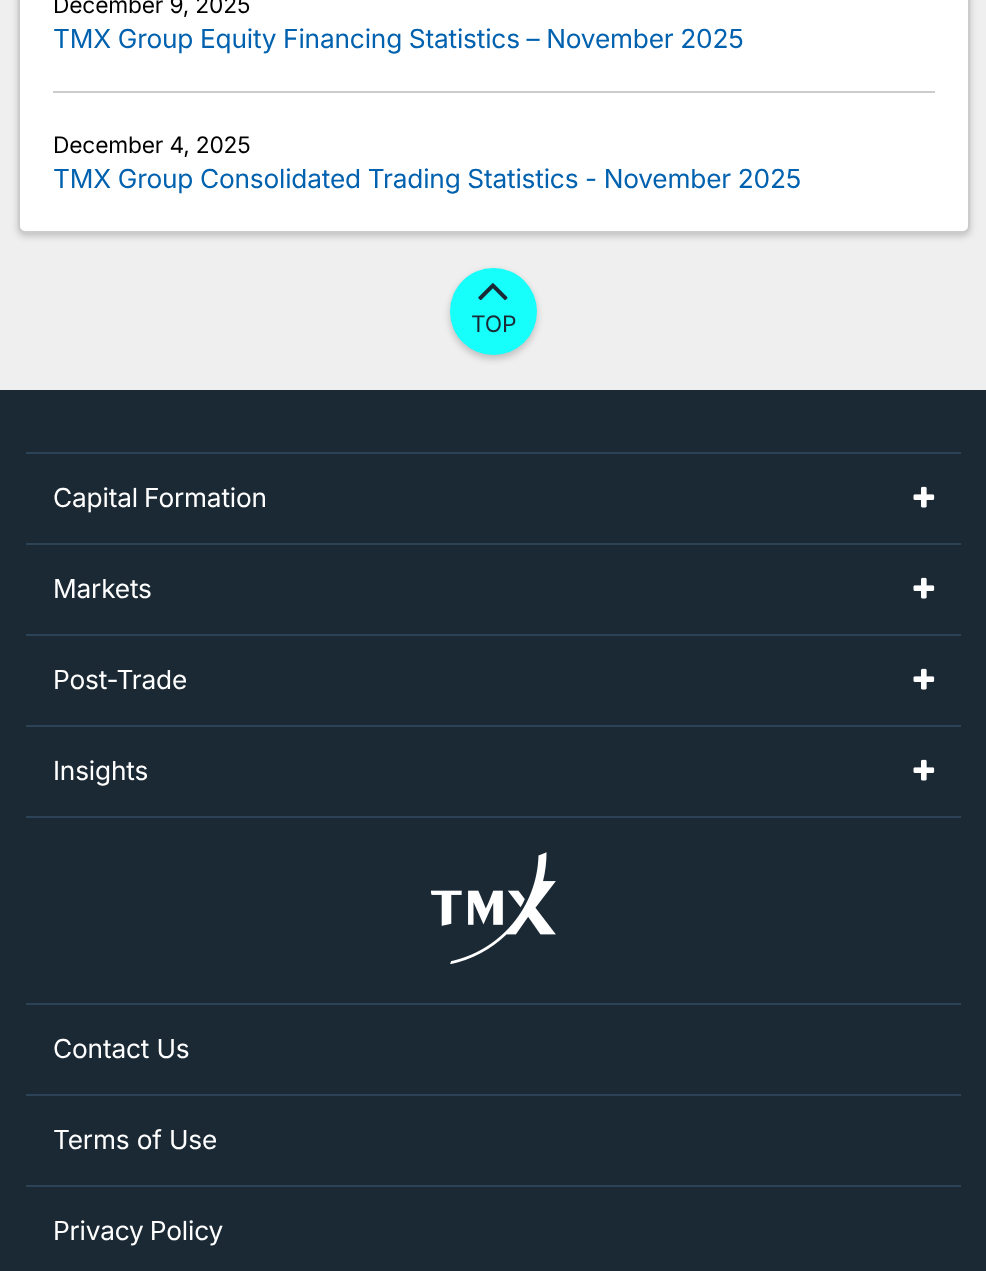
<?xml version="1.0" encoding="UTF-8"?>
<svg xmlns="http://www.w3.org/2000/svg" xmlns:xlink="http://www.w3.org/1999/xlink" width="986" height="1271">
  <rect width="100%" height="100%" fill="#efefef" />
  <rect x="18" y="-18" width="952" height="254" rx="7" fill="#000000" fill-opacity="0.2" filter="blur(3.5px)" />
  <rect x="19" y="-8" width="950" height="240" rx="6" fill="#ffffff" stroke="#cccccc" stroke-width="2" />
  <rect x="53" y="91" width="882" height="2" fill="#cccccc" />
  <rect x="450" y="271" width="87" height="88" rx="43.5" fill="#000000" fill-opacity="0.2" filter="blur(3.5px)" />
  <circle cx="493.5" cy="311.5" r="43.5" fill="#16fffb" />
  <image x="478" y="283" width="30" height="18" xlink:href="image1.png" />
  <rect y="390" width="986" height="881" fill="#1b2935" />
  <rect x="26" y="452" width="935" height="2" fill="#2c4357" />
  <image x="913" y="486" width="22" height="22" xlink:href="image2.png" />
  <rect x="26" y="543" width="935" height="2" fill="#2c4357" />
  <image x="913" y="577" width="22" height="22" xlink:href="image2.png" />
  <rect x="26" y="634" width="935" height="2" fill="#2c4357" />
  <image x="913" y="668" width="22" height="22" xlink:href="image2.png" />
  <rect x="26" y="725" width="935" height="2" fill="#2c4357" />
  <rect x="26" y="816" width="935" height="2" fill="#2c4357" />
  <image x="913" y="759" width="22" height="22" xlink:href="image2.png" />
  <image x="431" y="852" width="125" height="112" xlink:href="image3.png" />
  <rect x="26" y="1003" width="935" height="2" fill="#2c4357" />
  <rect x="26" y="1094" width="935" height="2" fill="#2c4357" />
  <rect x="26" y="1185" width="935" height="2" fill="#2c4357" />
  <text x="53" y="13" style="font-family: Inter; font-size: 22.75px; letter-spacing: -0.18px; fill: #000000">December 9, 2025</text>
  <text x="53" y="48" word-spacing="-0.5" style="font-family: Inter; font-size: 26.25px; letter-spacing: -0.18px; fill: #0061af">TMX Group Equity Financing Statistics – November 2025</text>
  <text x="53" y="153" style="font-family: Inter; font-size: 22.75px; letter-spacing: -0.18px; fill: #000000">December 4, 2025</text>
  <text x="53" y="188" word-spacing="-0.5" style="font-family: Inter; font-size: 26.25px; letter-spacing: -0.18px; fill: #0061af">TMX Group Consolidated Trading Statistics - November 2025</text>
  <text x="471" y="332" style="font-family: Inter; font-size: 22.75px; letter-spacing: -0.18px; fill: #1b2935">TOP</text>
  <text x="53" y="507" word-spacing="-1" style="font-family: Inter; font-size: 26.25px; letter-spacing: -0.18px; fill: #ffffff">Capital Formation</text>
  <text x="53" y="598" style="font-family: Inter; font-size: 26.25px; letter-spacing: -0.18px; fill: #ffffff">Markets</text>
  <text x="53" y="689" style="font-family: Inter; font-size: 26.25px; letter-spacing: -0.18px; fill: #ffffff">Post-Trade</text>
  <text x="53" y="780" style="font-family: Inter; font-size: 26.25px; letter-spacing: -0.18px; fill: #ffffff">Insights</text>
  <text x="53" y="1058" style="font-family: Inter; font-size: 26.25px; letter-spacing: -0.18px; fill: #ffffff">Contact Us</text>
  <text x="53" y="1149" style="font-family: Inter; font-size: 26.25px; letter-spacing: -0.18px; fill: #ffffff">Terms of Use</text>
  <text x="53" y="1240" word-spacing="-1" style="font-family: Inter; font-size: 26.25px; letter-spacing: -0.18px; fill: #ffffff">Privacy Policy</text>
</svg>
